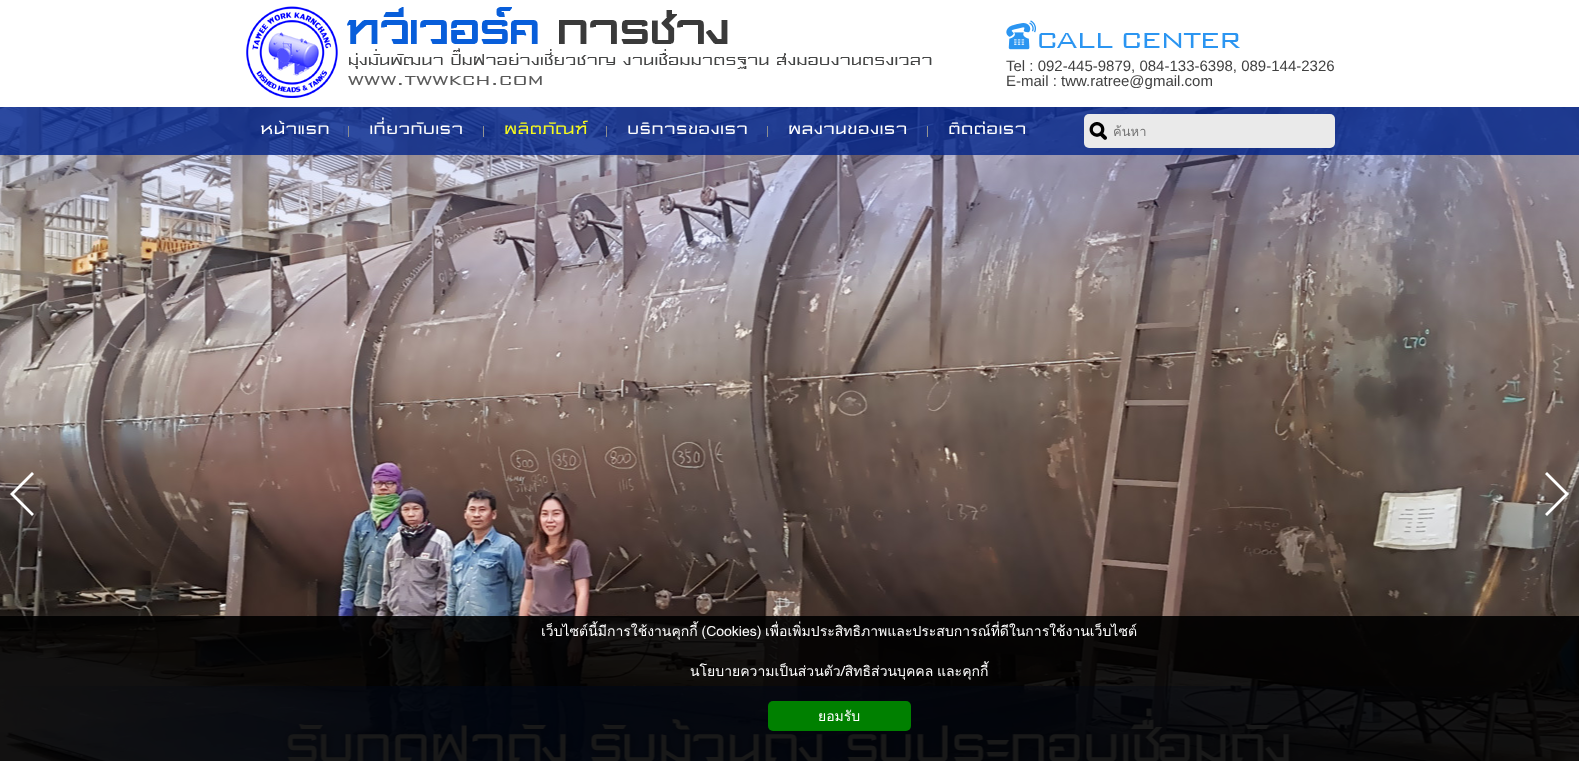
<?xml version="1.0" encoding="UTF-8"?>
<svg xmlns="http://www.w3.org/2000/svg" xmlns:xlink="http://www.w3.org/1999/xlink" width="1579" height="761">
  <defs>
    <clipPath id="clip1"><rect x="1113" y="121" width="220" height="21" /></clipPath>
  </defs>
  <rect width="100%" height="100%" fill="#ffffff" />
  <image x="246" y="6" width="686" height="92" xlink:href="image1.png" />
  <image x="1006" y="20" width="234" height="30" xlink:href="image2.png" />
  <image x="0" y="107" width="1579" height="654" xlink:href="image3.png" />
  <path d="M 10 494 l 22 -22 l 2 2 l -20 20 l 20 20 l -2 2 z" fill="#ffffff" />
  <path d="M 1569 494 l -22 22 l -2 -2 l 20 -20 l -20 -20 l 2 -2 z" fill="#ffffff" />
  <rect y="107" width="1579" height="48" fill="#01248a" fill-opacity="0.8" />
  <rect x="348" y="126" width="1" height="11" fill="#929292" fill-opacity="0.94" />
  <rect x="483" y="126" width="1" height="11" fill="#939393" />
  <rect x="606" y="126" width="1" height="11" fill="#929292" fill-opacity="0.94" />
  <rect x="767" y="126" width="1" height="11" fill="#8b8d92" />
  <rect x="927" y="126" width="1" height="11" fill="#939393" />
  <rect x="1084" y="114" width="251" height="34" rx="5" fill="#eaeaea" />
  <image x="1089" y="122" width="18" height="18" xlink:href="image4.png" />
  <rect y="616" width="1579" height="145" fill="#000000" fill-opacity="0.9" />
  <rect x="768" y="701" width="143" height="30" rx="5" fill="#008000" />
  <text x="1006" y="71" style="font-family: Liberation Sans; font-size: 15px; fill: #404040">Tel : 092-445-9879, 084-133-6398, 089-144-2326</text>
  <text x="1006" y="86" style="font-family: Liberation Sans; font-size: 15px; fill: #404040">E-mail : tww.ratree@gmail.com</text>
  <text x="260" y="134" style="font-family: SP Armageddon; font-size: 20px; fill: #ffffff">หน้าแรก</text>
  <text x="369" y="134" style="font-family: SP Armageddon; font-size: 20px; fill: #ffffff">เกี่ยวกับเรา</text>
  <text x="504" y="134" style="font-family: SP Armageddon; font-size: 20px; fill: #f7fa1e">ผลิตภัณฑ์</text>
  <text x="627" y="134" style="font-family: SP Armageddon; font-size: 20px; fill: #ffffff">บริการของเรา</text>
  <text x="788" y="134" style="font-family: SP Armageddon; font-size: 20px; fill: #ffffff">ผลงานของเรา</text>
  <text x="948" y="134" style="font-family: SP Armageddon; font-size: 20px; fill: #ffffff">ติดต่อเรา</text>
  <g clip-path="url(#clip1)">
    <text x="1113" y="136" style="font-family: Loma; font-size: 13px; fill: #757575">ค้นหา</text>
  </g>
  <text x="541" y="636" word-spacing="-1" style="font-family: Loma; font-size: 14px; fill: #ffffff">เว็บไซต์นี้มีการใช้งานคุกกี้ (Cookies) เพื่อเพิ่มประสิทธิภาพและประสบการณ์ที่ดีในการใช้งานเว็บไซต์</text>
  <text x="690" y="676" word-spacing="-1" style="font-family: Loma; font-size: 14px; fill: #ffffff">นโยบายความเป็นส่วนตัว/สิทธิส่วนบุคคล และคุกกี้</text>
  <text x="818" y="721" style="font-family: Loma; font-size: 14px; fill: #ffffff">ยอมรับ</text>
</svg>
